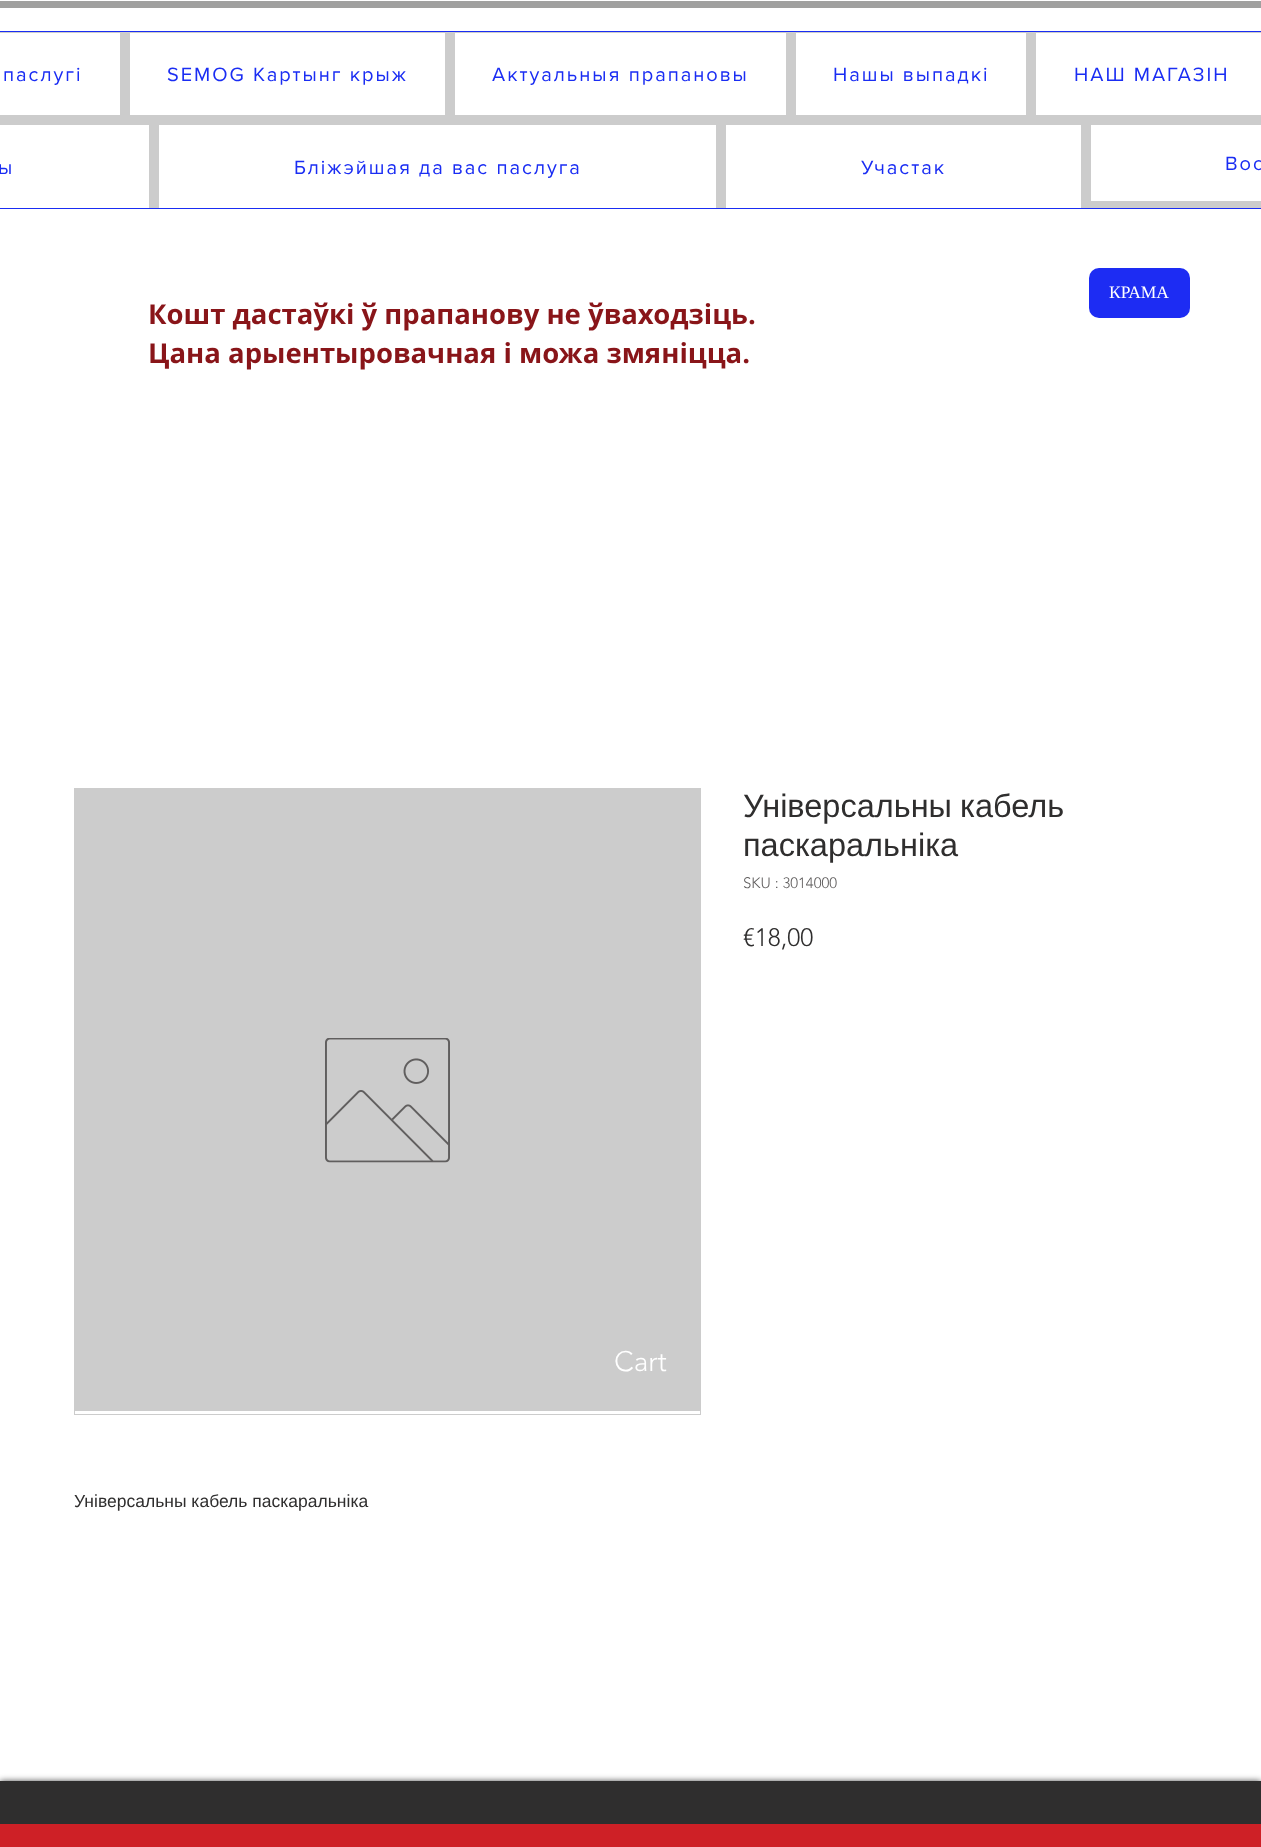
<?xml version="1.0" encoding="UTF-8"?>
<svg xmlns="http://www.w3.org/2000/svg" xmlns:xlink="http://www.w3.org/1999/xlink" width="1261" height="1847">
  <rect width="100%" height="100%" fill="#ffffff" />
  <rect y="1" width="1261" height="7" fill="#a0a09f" />
  <rect x="-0.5" y="31.5" width="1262" height="177" fill="#cccccc" stroke="#1a2df3" />
  <rect y="33" width="120" height="82" fill="#ffffff" />
  <rect x="130" y="33" width="315" height="82" fill="#ffffff" />
  <rect x="455" y="33" width="331" height="82" fill="#ffffff" />
  <rect x="796" y="33" width="230" height="82" fill="#ffffff" />
  <rect x="1036" y="33" width="225" height="82" fill="#ffffff" />
  <rect y="125" width="149" height="83" fill="#ffffff" />
  <rect x="159" y="125" width="557" height="83" fill="#ffffff" />
  <rect x="726" y="125" width="355" height="83" fill="#ffffff" />
  <rect x="1091" y="125" width="170" height="76" fill="#ffffff" />
  <rect x="1089" y="268" width="101" height="50" rx="10" fill="#1d2cf3" />
  <rect x="74.5" y="788.5" width="626" height="626" fill="none" stroke="#cccccc" />
  <rect x="75" y="789" width="625" height="622" fill="#cccccc" />
  <image x="325" y="1038" width="125" height="125" xlink:href="image1.png" />
  <rect y="1781" width="1261" height="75" fill="#000000" fill-opacity="0.7" filter="blur(3px)" />
  <rect y="1781" width="1261" height="43" fill="#2f2e2e" />
  <rect y="1824" width="1261" height="23" fill="#ce2026" />
  <text x="3" y="81" style="font-family: 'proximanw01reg'; font-size: 20px; letter-spacing: 2px; fill: #1a2df3">паслугі</text>
  <text x="167" y="81" style="font-family: 'proximanw01reg'; font-size: 20px; letter-spacing: 2px; fill: #1a2df3">SEMOG Картынг крыж</text>
  <text x="492" y="81" style="font-family: 'proximanw01reg'; font-size: 20px; letter-spacing: 2px; fill: #1a2df3">Актуальныя прапановы</text>
  <text x="833" y="81" style="font-family: 'proximanw01reg'; font-size: 20px; letter-spacing: 2px; fill: #1a2df3">Нашы выпадкі</text>
  <text x="1074" y="81" style="font-family: 'proximanw01reg'; font-size: 20px; letter-spacing: 2px; fill: #1a2df3">НАШ МАГАЗІН</text>
  <text x="-2" y="174" style="font-family: 'proximanw01reg'; font-size: 20px; letter-spacing: 2px; fill: #1a2df3">ы</text>
  <text x="294" y="174" style="font-family: 'proximanw01reg'; font-size: 20px; letter-spacing: 2px; fill: #1a2df3">Бліжэйшая да вас паслуга</text>
  <text x="861" y="174" style="font-family: 'proximanw01reg'; font-size: 20px; letter-spacing: 2px; fill: #1a2df3">Участак</text>
  <text x="1225" y="170" style="font-family: 'proximanw01reg'; font-size: 20px; letter-spacing: 2px; fill: #1a2df3">Boo</text>
  <text x="1109" y="298" style="font-family: Liberation Serif; font-size: 17.5px; fill: #ffffff">КРАМА</text>
  <text x="148" y="324" style="font-family: Open Sans; font-size: 27.5px; font-weight: bold; fill: #891519">Кошт дастаўкі ў прапанову не ўваходзіць.</text>
  <text x="148" y="363" style="font-family: Open Sans; font-size: 27.5px; font-weight: bold; fill: #891519">Цана арыентыровачная і можа змяніцца.</text>
  <text x="743" y="817" word-spacing="-1" style="font-family: Liberation Sans; font-size: 32.5px; fill: #2f2e2e">Універсальны кабель</text>
  <text x="743" y="856" style="font-family: Liberation Sans; font-size: 32.5px; fill: #2f2e2e">паскаральніка</text>
  <text x="743" y="888" style="font-family: 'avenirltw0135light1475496'; font-size: 15px; font-weight: 300; fill: #605e5e">SKU : 3014000</text>
  <text x="743" y="946" style="font-family: 'avenirltw0135light1475496'; font-size: 25px; font-weight: 300; fill: #2f2e2e">€18,00</text>
  <text x="74" y="1507" style="font-family: Liberation Sans; font-size: 17.5px; fill: #2f2e2e">Універсальны кабель паскаральніка</text>
  <text x="614" y="1371" style="font-family: 'avenirltw0135light1475496'; font-size: 28px; font-weight: 300; fill: #ffffff">Cart</text>
</svg>
